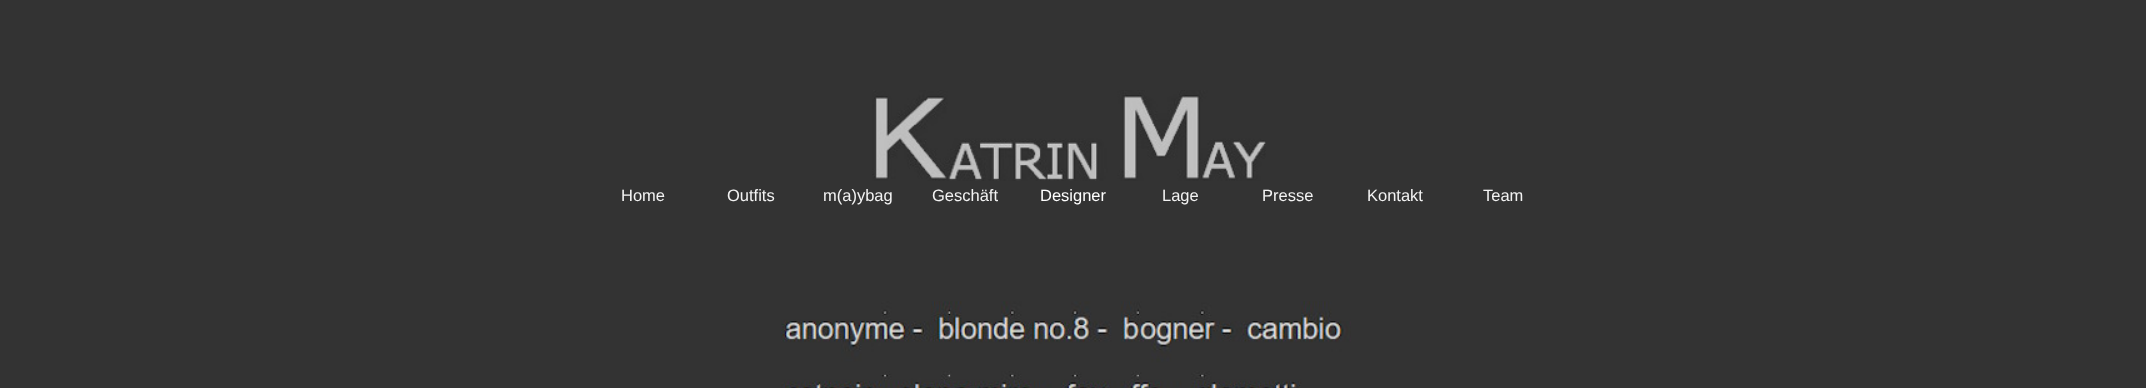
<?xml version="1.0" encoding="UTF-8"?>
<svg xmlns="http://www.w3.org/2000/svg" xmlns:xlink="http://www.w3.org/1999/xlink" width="2146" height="388">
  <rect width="100%" height="100%" fill="#333333" />
  <image x="872" y="90" width="394" height="91" xlink:href="image1.png" />
  <image x="781" y="301" width="570" height="87" xlink:href="image2.png" />
  <text x="621" y="201" style="font-family: Liberation Sans; font-size: 16.5px; fill: #f3f3f3">Home</text>
  <text x="727" y="201" style="font-family: Liberation Sans; font-size: 16.5px; fill: #f3f3f3">Outfits</text>
  <text x="823" y="201" style="font-family: Liberation Sans; font-size: 16.5px; fill: #f3f3f3">m(a)ybag</text>
  <text x="932" y="201" style="font-family: Liberation Sans; font-size: 16.5px; fill: #f3f3f3">Geschäft</text>
  <text x="1040" y="201" style="font-family: Liberation Sans; font-size: 16.5px; fill: #ffffff">Designer</text>
  <text x="1162" y="201" style="font-family: Liberation Sans; font-size: 16.5px; fill: #f3f3f3">Lage</text>
  <text x="1262" y="201" style="font-family: Liberation Sans; font-size: 16.5px; fill: #f3f3f3">Presse</text>
  <text x="1367" y="201" style="font-family: Liberation Sans; font-size: 16.5px; fill: #f3f3f3">Kontakt</text>
  <text x="1483" y="201" style="font-family: Liberation Sans; font-size: 16.5px; fill: #f3f3f3">Team</text>
</svg>
